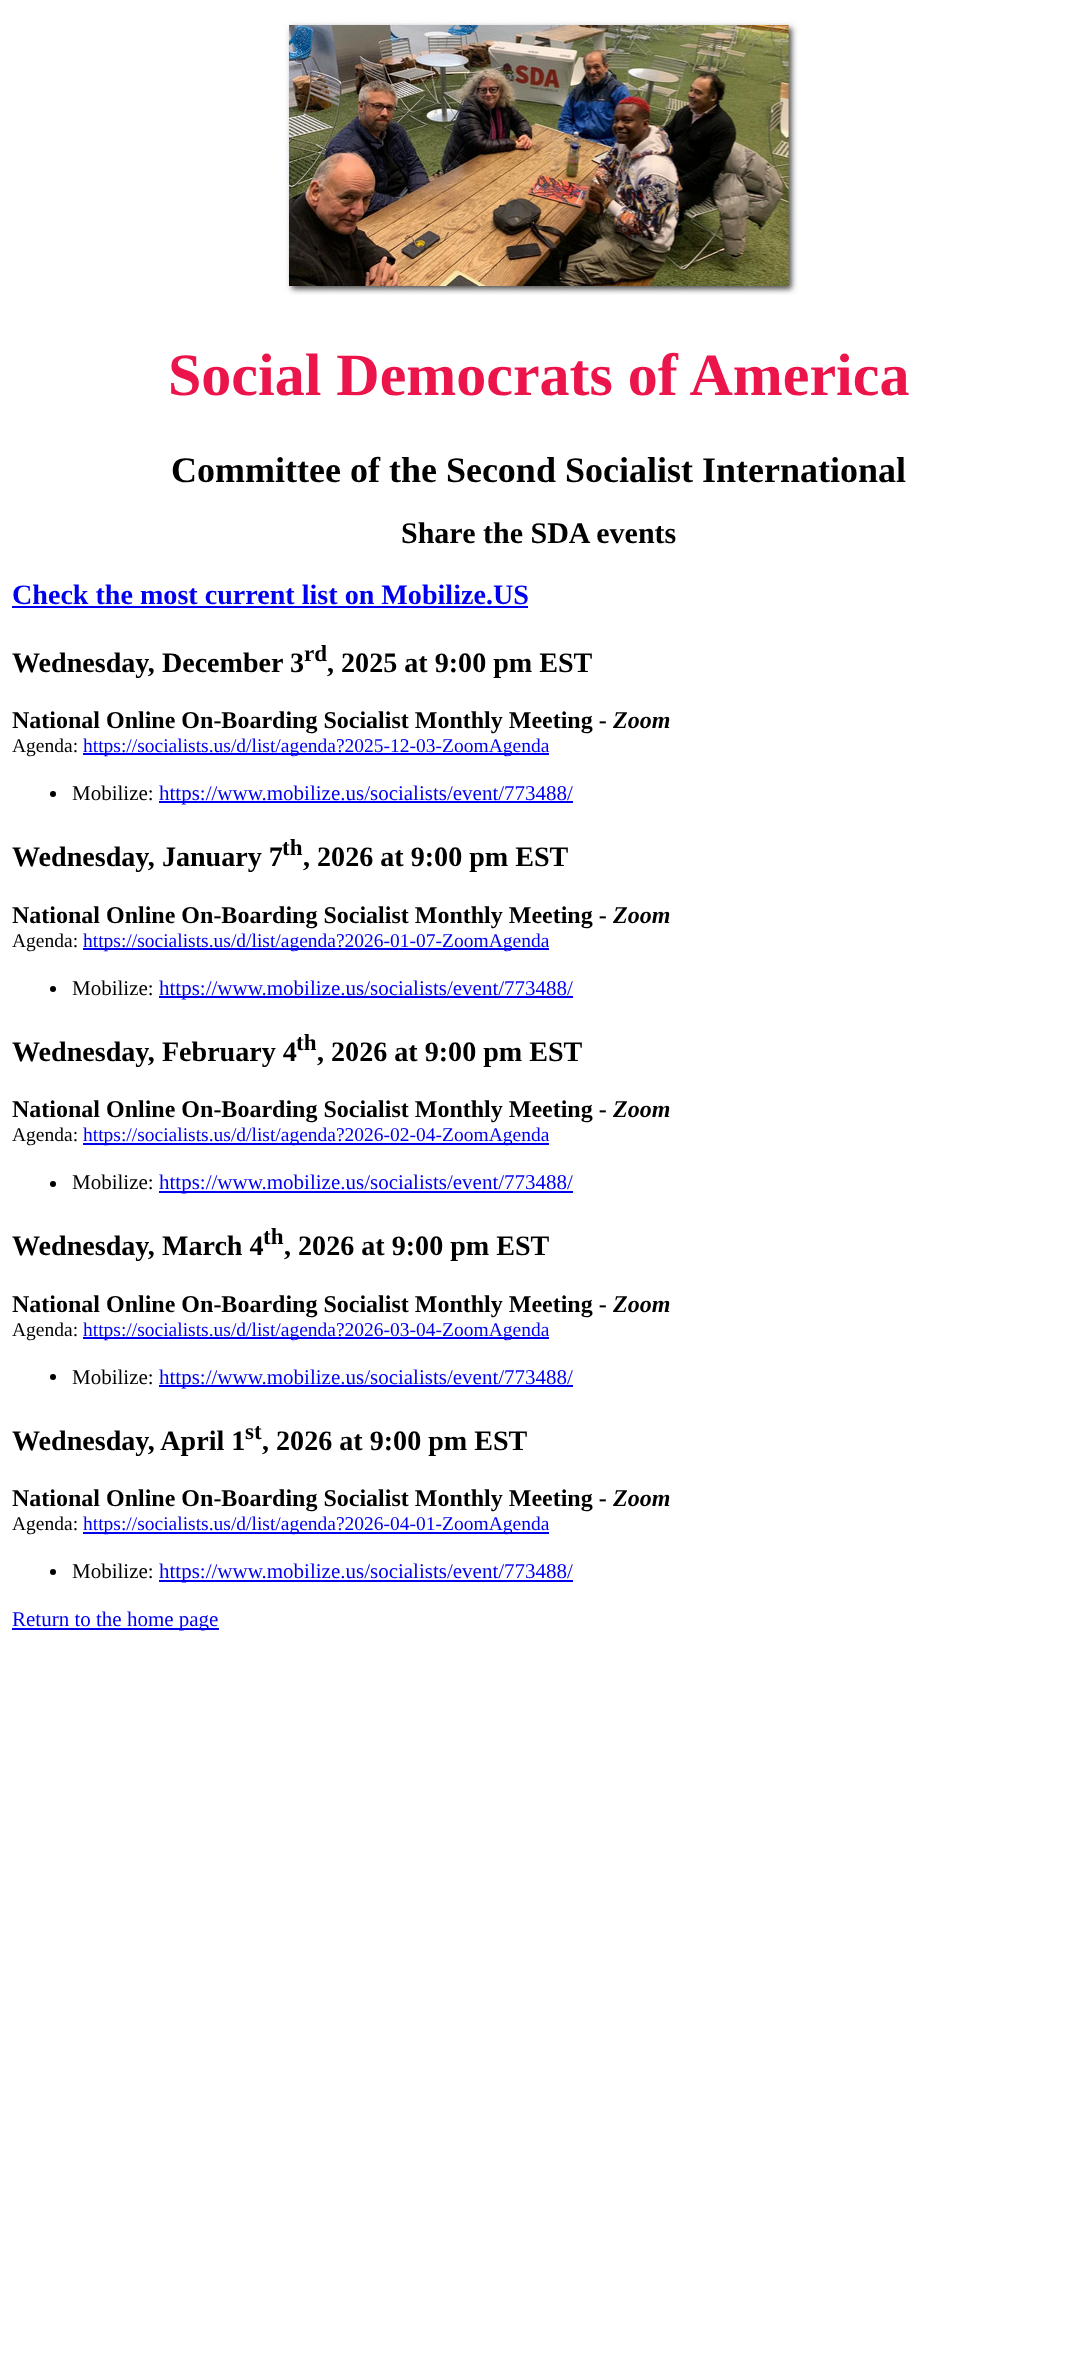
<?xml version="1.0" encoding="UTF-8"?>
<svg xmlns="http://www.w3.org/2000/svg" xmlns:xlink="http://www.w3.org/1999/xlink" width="1077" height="2362">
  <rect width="100%" height="100%" fill="#ffffff" />
  <image x="284" y="20" width="514" height="275" xlink:href="image1.png" />
  <rect x="12" y="606" width="516" height="2" fill="#0000ee" />
  <rect x="83" y="753" width="466" height="2" fill="#0000ee" />
  <circle cx="53" cy="794" r="3" fill="#000000" />
  <rect x="159" y="801" width="414" height="2" fill="#0000ee" />
  <rect x="83" y="948" width="466" height="2" fill="#0000ee" />
  <circle cx="53" cy="989" r="3" fill="#000000" />
  <rect x="159" y="996" width="414" height="2" fill="#0000ee" />
  <rect x="83" y="1143" width="466" height="2" fill="#0000ee" />
  <circle cx="53" cy="1184" r="3" fill="#000000" />
  <rect x="159" y="1191" width="414" height="2" fill="#0000ee" />
  <rect x="83" y="1337" width="466" height="2" fill="#0000ee" />
  <circle cx="53" cy="1377" r="3" fill="#000000" />
  <rect x="159" y="1385" width="414" height="2" fill="#0000ee" />
  <rect x="83" y="1532" width="466" height="2" fill="#0000ee" />
  <circle cx="53" cy="1572" r="3" fill="#000000" />
  <rect x="159" y="1580" width="414" height="2" fill="#0000ee" />
  <rect x="12" y="1628" width="207" height="2" fill="#0000ee" />
  <text x="168" y="395" style="font-family: Liberation Serif; font-size: 60px; font-weight: bold; fill: #ec154b">Social Democrats of America</text>
  <text x="171" y="482" style="font-family: Liberation Serif; font-size: 36px; font-weight: bold; fill: #000000">Committee of the Second Socialist International</text>
  <text x="401" y="543" style="font-family: Liberation Serif; font-size: 30px; font-weight: bold; fill: #000000">Share the SDA events</text>
  <text x="12" y="604" style="font-family: Liberation Serif; font-size: 28.1px; font-weight: bold; fill: #0000ee">Check the most current list on Mobilize.US</text>
  <text x="12" y="672" style="font-family: Liberation Serif; font-size: 28.1px; font-weight: bold; fill: #000000">Wednesday, December 3</text>
  <text x="304" y="661" style="font-family: Liberation Serif; font-size: 23px; font-weight: bold; fill: #000000">rd</text>
  <text x="327" y="672" style="font-family: Liberation Serif; font-size: 28.1px; font-weight: bold; fill: #000000">, 2025 at 9:00 pm EST</text>
  <text x="12" y="728" style="font-family: Liberation Serif; font-size: 24px; font-weight: bold; fill: #000000">National Online On-Boarding Socialist Monthly Meeting -</text>
  <text x="613" y="728" style="font-family: Liberation Serif; font-size: 24px; font-weight: bold; font-style: italic; fill: #000000">Zoom</text>
  <text x="12" y="752" style="font-family: Liberation Serif; font-size: 19.5px; fill: #000000">Agenda:</text>
  <text x="83" y="752" style="font-family: Liberation Serif; font-size: 19.5px; fill: #0000ee">https://socialists.us/d/list/agenda?2025-12-03-ZoomAgenda</text>
  <text x="72" y="800" style="font-family: Liberation Serif; font-size: 21px; fill: #000000">Mobilize:</text>
  <text x="159" y="800" style="font-family: Liberation Serif; font-size: 21px; fill: #0000ee">https://www.mobilize.us/socialists/event/773488/</text>
  <text x="12" y="866" style="font-family: Liberation Serif; font-size: 28.1px; font-weight: bold; fill: #000000">Wednesday, January 7</text>
  <text x="282" y="855" style="font-family: Liberation Serif; font-size: 23px; font-weight: bold; fill: #000000">th</text>
  <text x="303" y="866" style="font-family: Liberation Serif; font-size: 28.1px; font-weight: bold; fill: #000000">, 2026 at 9:00 pm EST</text>
  <text x="12" y="923" style="font-family: Liberation Serif; font-size: 24px; font-weight: bold; fill: #000000">National Online On-Boarding Socialist Monthly Meeting -</text>
  <text x="613" y="923" style="font-family: Liberation Serif; font-size: 24px; font-weight: bold; font-style: italic; fill: #000000">Zoom</text>
  <text x="12" y="947" style="font-family: Liberation Serif; font-size: 19.5px; fill: #000000">Agenda:</text>
  <text x="83" y="947" style="font-family: Liberation Serif; font-size: 19.5px; fill: #0000ee">https://socialists.us/d/list/agenda?2026-01-07-ZoomAgenda</text>
  <text x="72" y="995" style="font-family: Liberation Serif; font-size: 21px; fill: #000000">Mobilize:</text>
  <text x="159" y="995" style="font-family: Liberation Serif; font-size: 21px; fill: #0000ee">https://www.mobilize.us/socialists/event/773488/</text>
  <text x="12" y="1061" style="font-family: Liberation Serif; font-size: 28.1px; font-weight: bold; fill: #000000">Wednesday, February 4</text>
  <text x="296" y="1050" style="font-family: Liberation Serif; font-size: 23px; font-weight: bold; fill: #000000">th</text>
  <text x="317" y="1061" style="font-family: Liberation Serif; font-size: 28.1px; font-weight: bold; fill: #000000">, 2026 at 9:00 pm EST</text>
  <text x="12" y="1117" style="font-family: Liberation Serif; font-size: 24px; font-weight: bold; fill: #000000">National Online On-Boarding Socialist Monthly Meeting -</text>
  <text x="613" y="1117" style="font-family: Liberation Serif; font-size: 24px; font-weight: bold; font-style: italic; fill: #000000">Zoom</text>
  <text x="12" y="1141" style="font-family: Liberation Serif; font-size: 19.5px; fill: #000000">Agenda:</text>
  <text x="83" y="1141" style="font-family: Liberation Serif; font-size: 19.5px; fill: #0000ee">https://socialists.us/d/list/agenda?2026-02-04-ZoomAgenda</text>
  <text x="72" y="1189" style="font-family: Liberation Serif; font-size: 21px; fill: #000000">Mobilize:</text>
  <text x="159" y="1189" style="font-family: Liberation Serif; font-size: 21px; fill: #0000ee">https://www.mobilize.us/socialists/event/773488/</text>
  <text x="12" y="1255" style="font-family: Liberation Serif; font-size: 28.1px; font-weight: bold; fill: #000000">Wednesday, March 4</text>
  <text x="263" y="1244" style="font-family: Liberation Serif; font-size: 23px; font-weight: bold; fill: #000000">th</text>
  <text x="284" y="1255" style="font-family: Liberation Serif; font-size: 28.1px; font-weight: bold; fill: #000000">, 2026 at 9:00 pm EST</text>
  <text x="12" y="1312" style="font-family: Liberation Serif; font-size: 24px; font-weight: bold; fill: #000000">National Online On-Boarding Socialist Monthly Meeting -</text>
  <text x="613" y="1312" style="font-family: Liberation Serif; font-size: 24px; font-weight: bold; font-style: italic; fill: #000000">Zoom</text>
  <text x="12" y="1336" style="font-family: Liberation Serif; font-size: 19.5px; fill: #000000">Agenda:</text>
  <text x="83" y="1336" style="font-family: Liberation Serif; font-size: 19.5px; fill: #0000ee">https://socialists.us/d/list/agenda?2026-03-04-ZoomAgenda</text>
  <text x="72" y="1384" style="font-family: Liberation Serif; font-size: 21px; fill: #000000">Mobilize:</text>
  <text x="159" y="1384" style="font-family: Liberation Serif; font-size: 21px; fill: #0000ee">https://www.mobilize.us/socialists/event/773488/</text>
  <text x="12" y="1450" style="font-family: Liberation Serif; font-size: 28.1px; font-weight: bold; fill: #000000">Wednesday, April 1</text>
  <text x="245" y="1439" style="font-family: Liberation Serif; font-size: 23px; font-weight: bold; fill: #000000">st</text>
  <text x="262" y="1450" style="font-family: Liberation Serif; font-size: 28.1px; font-weight: bold; fill: #000000">, 2026 at 9:00 pm EST</text>
  <text x="12" y="1506" style="font-family: Liberation Serif; font-size: 24px; font-weight: bold; fill: #000000">National Online On-Boarding Socialist Monthly Meeting -</text>
  <text x="613" y="1506" style="font-family: Liberation Serif; font-size: 24px; font-weight: bold; font-style: italic; fill: #000000">Zoom</text>
  <text x="12" y="1530" style="font-family: Liberation Serif; font-size: 19.5px; fill: #000000">Agenda:</text>
  <text x="83" y="1530" style="font-family: Liberation Serif; font-size: 19.5px; fill: #0000ee">https://socialists.us/d/list/agenda?2026-04-01-ZoomAgenda</text>
  <text x="72" y="1578" style="font-family: Liberation Serif; font-size: 21px; fill: #000000">Mobilize:</text>
  <text x="159" y="1578" style="font-family: Liberation Serif; font-size: 21px; fill: #0000ee">https://www.mobilize.us/socialists/event/773488/</text>
  <text x="12" y="1626" style="font-family: Liberation Serif; font-size: 21px; fill: #0000ee">Return to the home page</text>
</svg>
